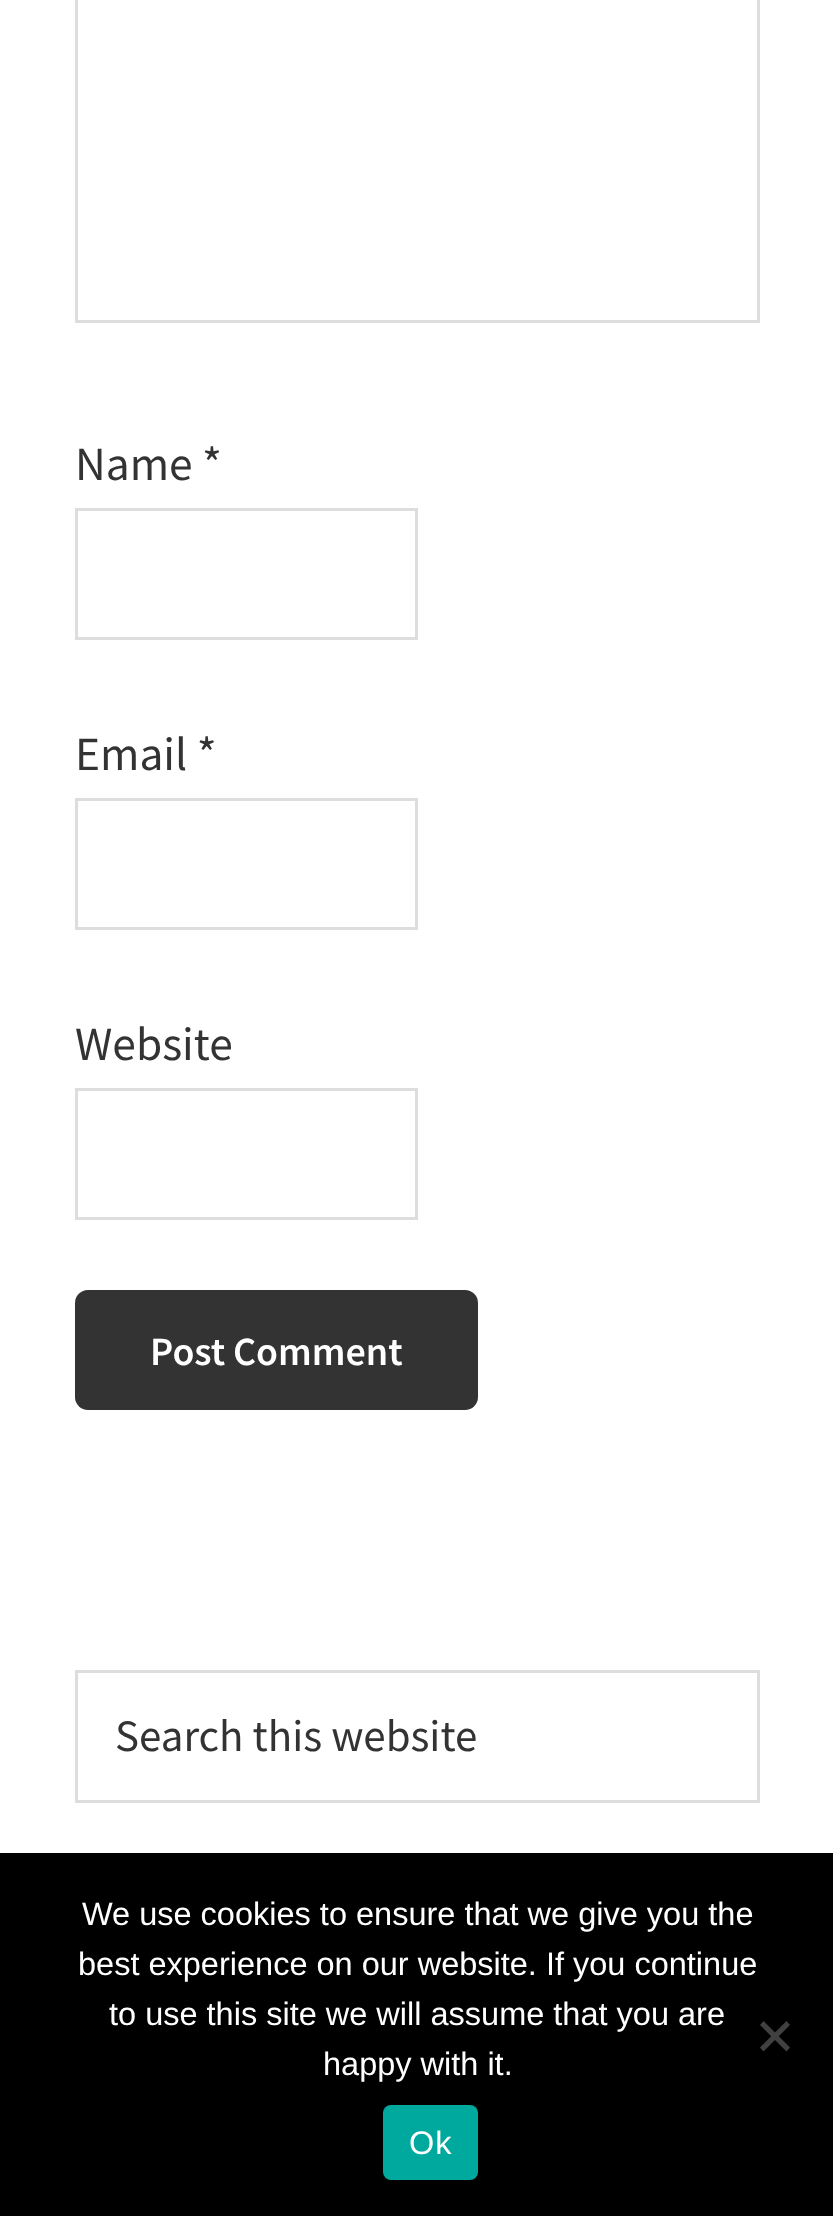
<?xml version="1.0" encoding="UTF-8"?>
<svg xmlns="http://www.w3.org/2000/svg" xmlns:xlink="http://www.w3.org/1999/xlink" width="833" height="2216">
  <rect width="100%" height="100%" fill="#ffffff" />
  <rect x="76.5" y="-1.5" width="682" height="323" fill="none" stroke="#dddddd" stroke-width="3" />
  <rect x="76.5" y="509.5" width="340" height="129" fill="none" stroke="#dddddd" stroke-width="3" />
  <rect x="76.5" y="799.5" width="340" height="129" fill="none" stroke="#dddddd" stroke-width="3" />
  <rect x="76.5" y="1089.5" width="340" height="129" fill="none" stroke="#dddddd" stroke-width="3" />
  <rect x="75" y="1290" width="403" height="120" rx="13" fill="#333333" />
  <rect x="76.5" y="1671.5" width="682" height="130" fill="none" stroke="#dddddd" stroke-width="3" />
  <rect y="1853" width="833" height="363" fill="#000000" />
  <path d="M 786.5 2021 l 3.5 4 l -26.5 26.5 l -3.5 -4 z" fill="#404040" />
  <path d="M 760 2025 l 3.5 -4 l 26.5 26.5 l -3.5 4 z" fill="#404040" />
  <rect x="383" y="2105" width="95" height="75" rx="8" fill="#00a99d" />
  <text x="75" y="480" style="font-family: Source Sans Pro; font-size: 47.5px; fill: #333333">Name *</text>
  <text x="75" y="770" style="font-family: Source Sans Pro; font-size: 47.5px; fill: #333333">Email *</text>
  <text x="75" y="1060" style="font-family: Source Sans Pro; font-size: 47.5px; fill: #333333">Website</text>
  <text x="150" y="1365" style="font-family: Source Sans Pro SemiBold; font-size: 40px; font-weight: 600; fill: #ffffff">Post Comment</text>
  <text x="115" y="1751" style="font-family: Source Sans Pro; font-size: 45px; fill: #333333">Search this website</text>
  <text x="82" y="1925" style="font-family: Liberation Sans; font-size: 32.5px; fill: #ffffff">We use cookies to ensure that we give you the</text>
  <text x="78" y="1975" style="font-family: Liberation Sans; font-size: 32.5px; fill: #ffffff">best experience on our website. If you continue</text>
  <text x="109" y="2025" style="font-family: Liberation Sans; font-size: 32.5px; fill: #ffffff">to use this site we will assume that you are</text>
  <text x="323" y="2075" style="font-family: Liberation Sans; font-size: 32.5px; fill: #ffffff">happy with it.</text>
  <text x="409" y="2154" style="font-family: Liberation Sans; font-size: 32.5px; letter-spacing: 1px; fill: #ffffff">Ok</text>
</svg>
